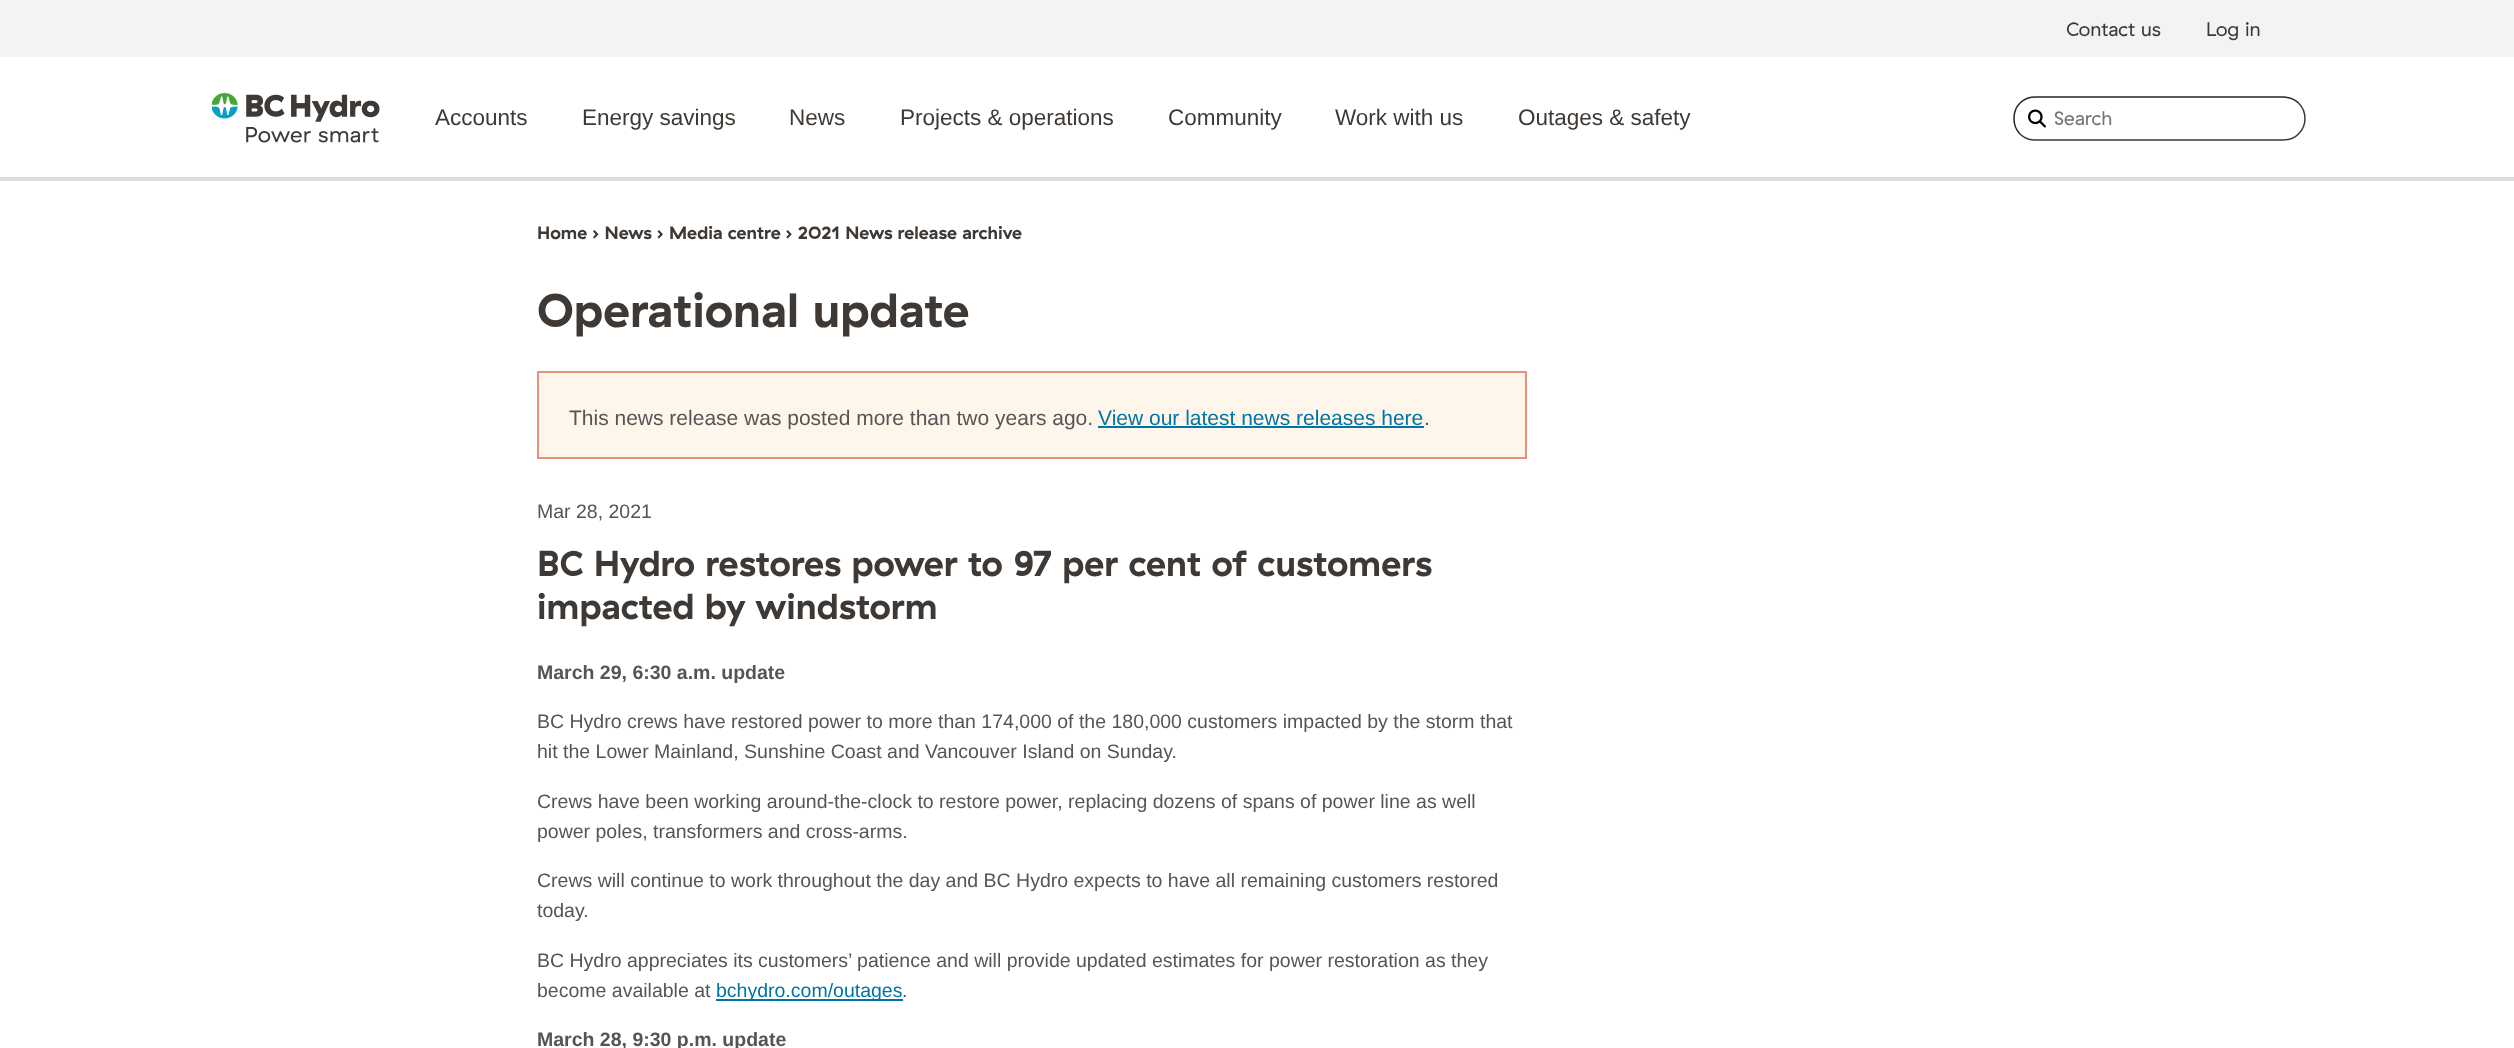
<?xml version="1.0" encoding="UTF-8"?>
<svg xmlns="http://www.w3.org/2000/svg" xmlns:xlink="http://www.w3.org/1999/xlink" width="2514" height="1048">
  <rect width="100%" height="100%" fill="#ffffff" />
  <rect width="2514" height="57" fill="#f3f3f3" />
  <image x="212" y="93" width="168" height="50" xlink:href="image1.png" />
  <path d="M 2298.5 103 c 4 4 6.5 9.5 6.5 15.5 c 0 6 -2.5 11.5 -6.5 15.5 c -4 4 -9.5 6 -15.5 6 h -247.5 c -6 0 -11.5 -2 -15.5 -6" fill="none" stroke="#3e3935" stroke-width="1.5" />
  <path d="M 2020 134 c -4 -4 -6 -9.5 -6 -15.5 c 0 -6 2 -11.5 6 -15.5 c 4 -4 9.5 -6 15.5 -6 h 247.5 c 6 0 11.5 2 15.5 6" fill="none" stroke="#292623" stroke-width="1.5" />
  <image x="2028" y="109" width="18" height="19" xlink:href="image2.png" />
  <rect y="177" width="2514" height="4" fill="#dddddd" />
  <rect x="538" y="372" width="988" height="86" fill="#fef6eb" stroke="#e8927c" stroke-width="2" />
  <rect x="1098" y="426" width="326" height="2" fill="#0074a4" />
  <rect x="716" y="999" width="187" height="2" fill="#0074a4" />
  <text x="2066" y="36" style="font-family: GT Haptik; font-size: 19.5px; fill: #3e3935">Contact us</text>
  <text x="2206" y="36" style="font-family: GT Haptik; font-size: 19.5px; fill: #3e3935">Log in</text>
  <text x="435" y="125" style="font-family: Liberation Sans; font-size: 22.5px; fill: #3e3935">Accounts</text>
  <text x="582" y="125" style="font-family: Liberation Sans; font-size: 22.5px; fill: #3e3935">Energy savings</text>
  <text x="789" y="125" style="font-family: Liberation Sans; font-size: 22.5px; fill: #3e3935">News</text>
  <text x="900" y="125" style="font-family: Liberation Sans; font-size: 22.5px; fill: #3e3935">Projects &amp; operations</text>
  <text x="1168" y="125" style="font-family: Liberation Sans; font-size: 22.5px; fill: #3e3935">Community</text>
  <text x="1335" y="125" style="font-family: Liberation Sans; font-size: 22.5px; fill: #3e3935">Work with us</text>
  <text x="1518" y="125" style="font-family: Liberation Sans; font-size: 22.5px; fill: #3e3935">Outages &amp; safety</text>
  <text x="2054" y="125" style="font-family: GT Haptik; font-size: 19.5px; fill: #757575">Search</text>
  <text x="537" y="239" style="font-family: GT Haptik; font-size: 18px; font-weight: bold; fill: #3e3935">Home › News › Media centre › 2021 News release archive</text>
  <text x="537" y="327" style="font-family: GT Haptik; font-size: 48px; font-weight: bold; fill: #3e3935">Operational update</text>
  <text x="569" y="425" style="font-family: Liberation Sans; font-size: 21px; fill: #555555">This news release was posted more than two years ago.</text>
  <text x="1098" y="425" style="font-family: Liberation Sans; font-size: 21px; fill: #0074a4">View our latest news releases here</text>
  <text x="1424" y="425" style="font-family: Liberation Sans; font-size: 21px; fill: #555555">.</text>
  <text x="537" y="518" style="font-family: Liberation Sans; font-size: 19.5px; fill: #555555">Mar 28, 2021</text>
  <text x="537" y="576" style="font-family: GT Haptik; font-size: 36px; font-weight: bold; fill: #3e3935">BC Hydro restores power to 97 per cent of customers</text>
  <text x="537" y="619" style="font-family: GT Haptik; font-size: 36px; font-weight: bold; fill: #3e3935">impacted by windstorm</text>
  <text x="537" y="679" style="font-family: Liberation Sans; font-size: 19.5px; font-weight: bold; fill: #555555">March 29, 6:30 a.m. update</text>
  <text x="537" y="728" style="font-family: Liberation Sans; font-size: 19.5px; fill: #555555">BC Hydro crews have restored power to more than 174,000 of the 180,000 customers impacted by the storm that</text>
  <text x="537" y="758" style="font-family: Liberation Sans; font-size: 19.5px; fill: #555555">hit the Lower Mainland, Sunshine Coast and Vancouver Island on Sunday.</text>
  <text x="537" y="808" style="font-family: Liberation Sans; font-size: 19.5px; fill: #555555">Crews have been working around-the-clock to restore power, replacing dozens of spans of power line as well</text>
  <text x="537" y="838" style="font-family: Liberation Sans; font-size: 19.5px; fill: #555555">power poles, transformers and cross-arms.</text>
  <text x="537" y="887" style="font-family: Liberation Sans; font-size: 19.5px; fill: #555555">Crews will continue to work throughout the day and BC Hydro expects to have all remaining customers restored</text>
  <text x="537" y="917" style="font-family: Liberation Sans; font-size: 19.5px; fill: #555555">today.</text>
  <text x="537" y="967" style="font-family: Liberation Sans; font-size: 19.5px; fill: #555555">BC Hydro appreciates its customers’ patience and will provide updated estimates for power restoration as they</text>
  <text x="537" y="997" style="font-family: Liberation Sans; font-size: 19.5px; fill: #555555">become available at</text>
  <text x="716" y="997" style="font-family: Liberation Sans; font-size: 19.5px; fill: #0074a4">bchydro.com/outages</text>
  <text x="902" y="997" style="font-family: Liberation Sans; font-size: 19.5px; fill: #555555">.</text>
  <text x="537" y="1046" style="font-family: Liberation Sans; font-size: 19.5px; font-weight: bold; fill: #555555">March 28, 9:30 p.m. update</text>
</svg>
